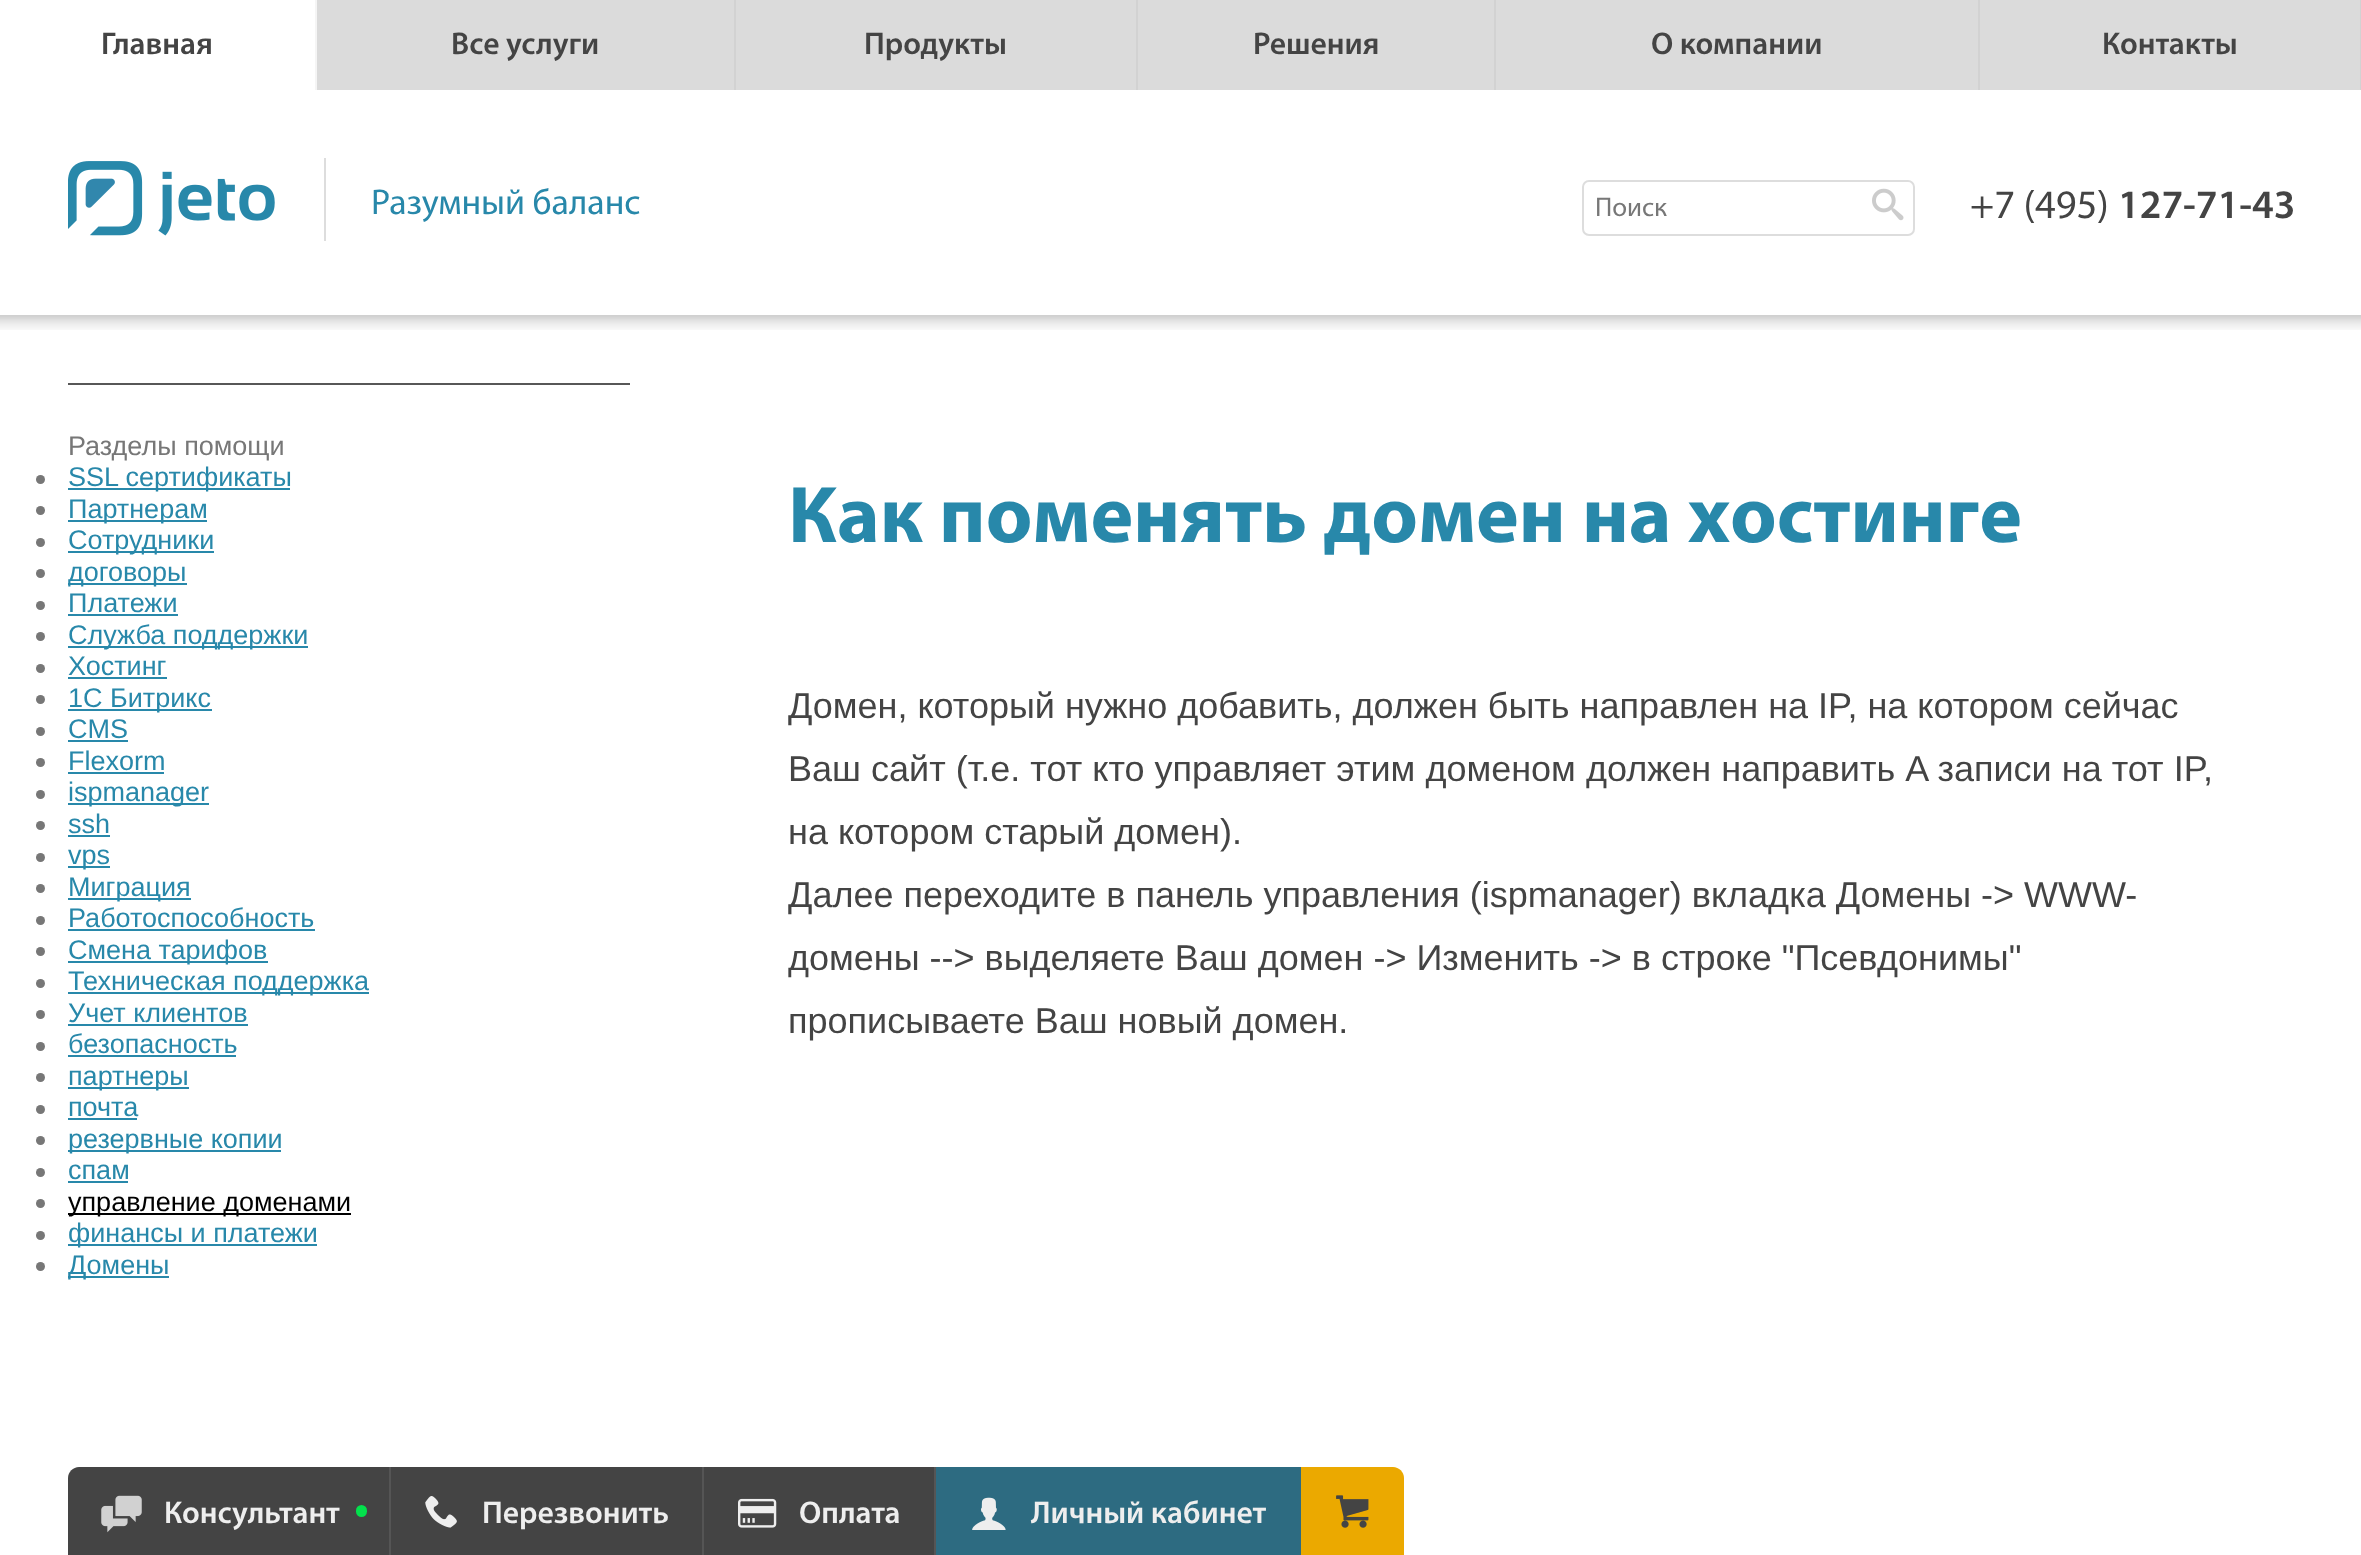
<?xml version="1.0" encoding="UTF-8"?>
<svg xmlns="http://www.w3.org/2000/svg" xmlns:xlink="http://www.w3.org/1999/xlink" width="2361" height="1555">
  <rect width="100%" height="100%" fill="#ffffff" />
  <rect x="315" width="2" height="90" fill="#f5f5f5" />
  <rect x="317" width="417" height="90" fill="#dbdbdb" />
  <rect x="734" width="2" height="90" fill="#d2d2d2" />
  <rect x="736" width="758" height="90" fill="#dbdbdb" />
  <rect x="1136" width="2" height="90" fill="#d2d2d2" />
  <rect x="1494" width="2" height="90" fill="#d2d2d2" />
  <rect x="1496" width="482" height="90" fill="#dbdbdb" />
  <rect x="1978" width="2" height="90" fill="#d2d2d2" />
  <rect x="1980" width="380" height="90" fill="#dbdbdb" />
  <rect x="2360" width="1" height="90" fill="#d2d2d2" />
  <image x="68" y="161" width="207" height="75" xlink:href="image1.png" />
  <rect x="324" y="158" width="2" height="83" fill="#dddddd" />
  <rect x="1583" y="181" width="331" height="54" rx="6" fill="none" stroke="#dddddd" stroke-width="2" />
  <image x="1872" y="188" width="32" height="33" xlink:href="image2.png" />
  <image x="0" y="315" width="2361" height="15" xlink:href="image3.png" />
  <rect x="68" y="383" width="562" height="2" fill="#575757" />
  <circle cx="40.5" cy="479.5" r="4.5" fill="#777777" />
  <rect x="68" y="488" width="222" height="2" fill="#2888aa" />
  <circle cx="40.5" cy="510.5" r="4.5" fill="#777777" />
  <rect x="68" y="520" width="139" height="2" fill="#2888aa" />
  <circle cx="40.5" cy="542.5" r="4.5" fill="#777777" />
  <rect x="68" y="551" width="146" height="2" fill="#2888aa" />
  <circle cx="40.5" cy="573.5" r="4.5" fill="#777777" />
  <rect x="68" y="583" width="119" height="2" fill="#2888aa" />
  <circle cx="40.5" cy="605.5" r="4.5" fill="#777777" />
  <rect x="68" y="614" width="110" height="2" fill="#2888aa" />
  <circle cx="40.5" cy="636.5" r="4.5" fill="#777777" />
  <rect x="68" y="646" width="240" height="2" fill="#2888aa" />
  <circle cx="40.5" cy="668.5" r="4.5" fill="#777777" />
  <rect x="68" y="677" width="99" height="2" fill="#2888aa" />
  <circle cx="40.5" cy="699.5" r="4.5" fill="#777777" />
  <rect x="68" y="709" width="144" height="2" fill="#2888aa" />
  <circle cx="40.5" cy="731.5" r="4.5" fill="#777777" />
  <rect x="68" y="740" width="60" height="2" fill="#2888aa" />
  <circle cx="40.5" cy="762.5" r="4.5" fill="#777777" />
  <rect x="68" y="772" width="96" height="2" fill="#2888aa" />
  <circle cx="40.5" cy="794.5" r="4.5" fill="#777777" />
  <rect x="68" y="803" width="141" height="2" fill="#2888aa" />
  <circle cx="40.5" cy="825.5" r="4.5" fill="#777777" />
  <rect x="68" y="835" width="42" height="2" fill="#2888aa" />
  <circle cx="40.5" cy="857.5" r="4.5" fill="#777777" />
  <rect x="68" y="866" width="42" height="2" fill="#2888aa" />
  <circle cx="40.5" cy="888.5" r="4.5" fill="#777777" />
  <rect x="68" y="898" width="123" height="2" fill="#2888aa" />
  <circle cx="40.5" cy="920.5" r="4.5" fill="#777777" />
  <rect x="68" y="929" width="247" height="2" fill="#2888aa" />
  <circle cx="40.5" cy="951.5" r="4.5" fill="#777777" />
  <rect x="68" y="961" width="200" height="2" fill="#2888aa" />
  <circle cx="40.5" cy="983.5" r="4.5" fill="#777777" />
  <rect x="68" y="992" width="301" height="2" fill="#2888aa" />
  <circle cx="40.5" cy="1014.5" r="4.5" fill="#777777" />
  <rect x="68" y="1024" width="180" height="2" fill="#2888aa" />
  <circle cx="40.5" cy="1046.5" r="4.5" fill="#777777" />
  <rect x="68" y="1055" width="168" height="2" fill="#2888aa" />
  <circle cx="40.5" cy="1077.5" r="4.5" fill="#777777" />
  <rect x="68" y="1087" width="121" height="2" fill="#2888aa" />
  <circle cx="40.5" cy="1109.5" r="4.5" fill="#777777" />
  <rect x="68" y="1118" width="69" height="2" fill="#2888aa" />
  <circle cx="40.5" cy="1140.5" r="4.5" fill="#777777" />
  <rect x="68" y="1150" width="213" height="2" fill="#2888aa" />
  <circle cx="40.5" cy="1172.5" r="4.5" fill="#777777" />
  <rect x="68" y="1181" width="60" height="2" fill="#2888aa" />
  <circle cx="40.5" cy="1203.5" r="4.5" fill="#777777" />
  <rect x="68" y="1213" width="283" height="2" fill="#000000" />
  <circle cx="40.5" cy="1235.5" r="4.5" fill="#777777" />
  <rect x="68" y="1244" width="249" height="2" fill="#2888aa" />
  <circle cx="40.5" cy="1266.5" r="4.5" fill="#777777" />
  <rect x="68" y="1276" width="101" height="2" fill="#2888aa" />
  <path d="M 79 1467 h 313 v 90 h -324 v -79 c 0 -6 5 -11 11 -11 z" fill="#444444" />
  <rect x="389" y="1467" width="2" height="88" fill="#555555" />
  <image x="101" y="1495" width="41" height="38" xlink:href="image4.png" />
  <rect x="356" y="1505" width="11" height="12" rx="5.5" fill="#03e14c" />
  <rect x="392" y="1467" width="310" height="88" fill="#444444" />
  <rect x="702" y="1467" width="2" height="88" fill="#555555" />
  <image x="425" y="1496" width="32" height="32" xlink:href="image5.png" />
  <rect x="704" y="1467" width="230" height="88" fill="#444444" />
  <rect x="934" y="1467" width="2" height="88" fill="#555555" />
  <image x="738" y="1498" width="39" height="30" xlink:href="image6.png" />
  <rect x="936" y="1467" width="365" height="88" fill="#2d6b81" />
  <image x="972" y="1497" width="34" height="33" xlink:href="image7.png" />
  <path d="M 1301 1467 h 92 c 6 0 11 5 11 11 v 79 h -103 z" fill="#eba900" />
  <image x="1336" y="1495" width="33" height="33" xlink:href="image8.png" />
  <text x="101" y="54" style="font-family: Myriad; font-size: 31.5px; font-weight: 600; fill: #444444">Главная</text>
  <text x="451" y="54" style="font-family: Myriad; font-size: 31.5px; font-weight: 600; fill: #444444">Все услуги</text>
  <text x="864" y="54" style="font-family: Myriad; font-size: 31.5px; font-weight: 600; fill: #444444">Продукты</text>
  <text x="1253" y="54" style="font-family: Myriad; font-size: 31.5px; font-weight: 600; fill: #444444">Решения</text>
  <text x="1651" y="54" style="font-family: Myriad; font-size: 31.5px; font-weight: 600; fill: #444444">О компании</text>
  <text x="2102" y="54" style="font-family: Myriad; font-size: 31.5px; font-weight: 600; fill: #444444">Контакты</text>
  <text x="371" y="214" style="font-family: Myriad; font-size: 36px; fill: #2888aa">Разумный баланс</text>
  <text x="1595" y="216" style="font-family: Myriad; font-size: 27px; fill: #777777">Поиск</text>
  <text x="1970" y="218" style="font-family: Myriad; font-size: 40.5px; fill: #444444">+7 (495)</text>
  <text x="2118" y="218" style="font-family: Myriad; font-size: 40.5px; font-weight: 600; fill: #444444">127-71-43</text>
  <text x="68" y="455" style="font-family: Liberation Sans; font-size: 27px; fill: #777777">Разделы помощи</text>
  <text x="68" y="486" style="font-family: Liberation Sans; font-size: 27px; fill: #2888aa">SSL сертификаты</text>
  <text x="68" y="518" style="font-family: Liberation Sans; font-size: 27px; fill: #2888aa">Партнерам</text>
  <text x="68" y="549" style="font-family: Liberation Sans; font-size: 27px; fill: #2888aa">Сотрудники</text>
  <text x="68" y="581" style="font-family: Liberation Sans; font-size: 27px; fill: #2888aa">договоры</text>
  <text x="68" y="612" style="font-family: Liberation Sans; font-size: 27px; fill: #2888aa">Платежи</text>
  <text x="68" y="644" style="font-family: Liberation Sans; font-size: 27px; fill: #2888aa">Служба поддержки</text>
  <text x="68" y="675" style="font-family: Liberation Sans; font-size: 27px; fill: #2888aa">Хостинг</text>
  <text x="68" y="707" style="font-family: Liberation Sans; font-size: 27px; fill: #2888aa">1С Битрикс</text>
  <text x="68" y="738" style="font-family: Liberation Sans; font-size: 27px; fill: #2888aa">CMS</text>
  <text x="68" y="770" style="font-family: Liberation Sans; font-size: 27px; fill: #2888aa">Flexorm</text>
  <text x="68" y="801" style="font-family: Liberation Sans; font-size: 27px; fill: #2888aa">ispmanager</text>
  <text x="68" y="833" style="font-family: Liberation Sans; font-size: 27px; fill: #2888aa">ssh</text>
  <text x="68" y="864" style="font-family: Liberation Sans; font-size: 27px; fill: #2888aa">vps</text>
  <text x="68" y="896" style="font-family: Liberation Sans; font-size: 27px; fill: #2888aa">Миграция</text>
  <text x="68" y="927" style="font-family: Liberation Sans; font-size: 27px; fill: #2888aa">Работоспособность</text>
  <text x="68" y="959" style="font-family: Liberation Sans; font-size: 27px; fill: #2888aa">Смена тарифов</text>
  <text x="68" y="990" style="font-family: Liberation Sans; font-size: 27px; fill: #2888aa">Техническая поддержка</text>
  <text x="68" y="1022" style="font-family: Liberation Sans; font-size: 27px; fill: #2888aa">Учет клиентов</text>
  <text x="68" y="1053" style="font-family: Liberation Sans; font-size: 27px; fill: #2888aa">безопасность</text>
  <text x="68" y="1085" style="font-family: Liberation Sans; font-size: 27px; fill: #2888aa">партнеры</text>
  <text x="68" y="1116" style="font-family: Liberation Sans; font-size: 27px; fill: #2888aa">почта</text>
  <text x="68" y="1148" style="font-family: Liberation Sans; font-size: 27px; fill: #2888aa">резервные копии</text>
  <text x="68" y="1179" style="font-family: Liberation Sans; font-size: 27px; fill: #2888aa">спам</text>
  <text x="68" y="1211" style="font-family: Liberation Sans; font-size: 27px; fill: #000000">управление доменами</text>
  <text x="68" y="1242" style="font-family: Liberation Sans; font-size: 27px; fill: #2888aa">финансы и платежи</text>
  <text x="68" y="1274" style="font-family: Liberation Sans; font-size: 27px; fill: #2888aa">Домены</text>
  <text x="788" y="542" style="font-family: Myriad; font-size: 81px; font-weight: bold; fill: #2888aa">Как поменять домен на хостинге</text>
  <text x="788" y="718" style="font-family: Liberation Sans; font-size: 36px; fill: #444444">Домен, который нужно добавить, должен быть направлен на IP, на котором сейчас</text>
  <text x="788" y="781" word-spacing="0.1" style="font-family: Liberation Sans; font-size: 36px; fill: #444444">Ваш сайт (т.е. тот кто управляет этим доменом должен направить A записи на тот IP,</text>
  <text x="788" y="844" style="font-family: Liberation Sans; font-size: 36px; fill: #444444">на котором старый домен).</text>
  <text x="788" y="907" style="font-family: Liberation Sans; font-size: 36px; fill: #444444">Далее переходите в панель управления (ispmanager) вкладка Домены -&gt; WWW-</text>
  <text x="788" y="970" style="font-family: Liberation Sans; font-size: 36px; fill: #444444">домены --&gt; выделяете Ваш домен -&gt; Изменить -&gt; в строке "Псевдонимы"</text>
  <text x="788" y="1033" style="font-family: Liberation Sans; font-size: 36px; fill: #444444">прописываете Ваш новый домен.</text>
  <text x="164" y="1523" style="font-family: Myriad; font-size: 31.5px; font-weight: 600; fill: #eeeeee">Консультант</text>
  <text x="482" y="1523" style="font-family: Myriad; font-size: 31.5px; font-weight: 600; fill: #eeeeee">Перезвонить</text>
  <text x="799" y="1523" style="font-family: Myriad; font-size: 31.5px; font-weight: 600; fill: #eeeeee">Оплата</text>
  <text x="1031" y="1523" style="font-family: Myriad; font-size: 31.5px; font-weight: 600; fill: #eeeeee">Личный кабинет</text>
</svg>
